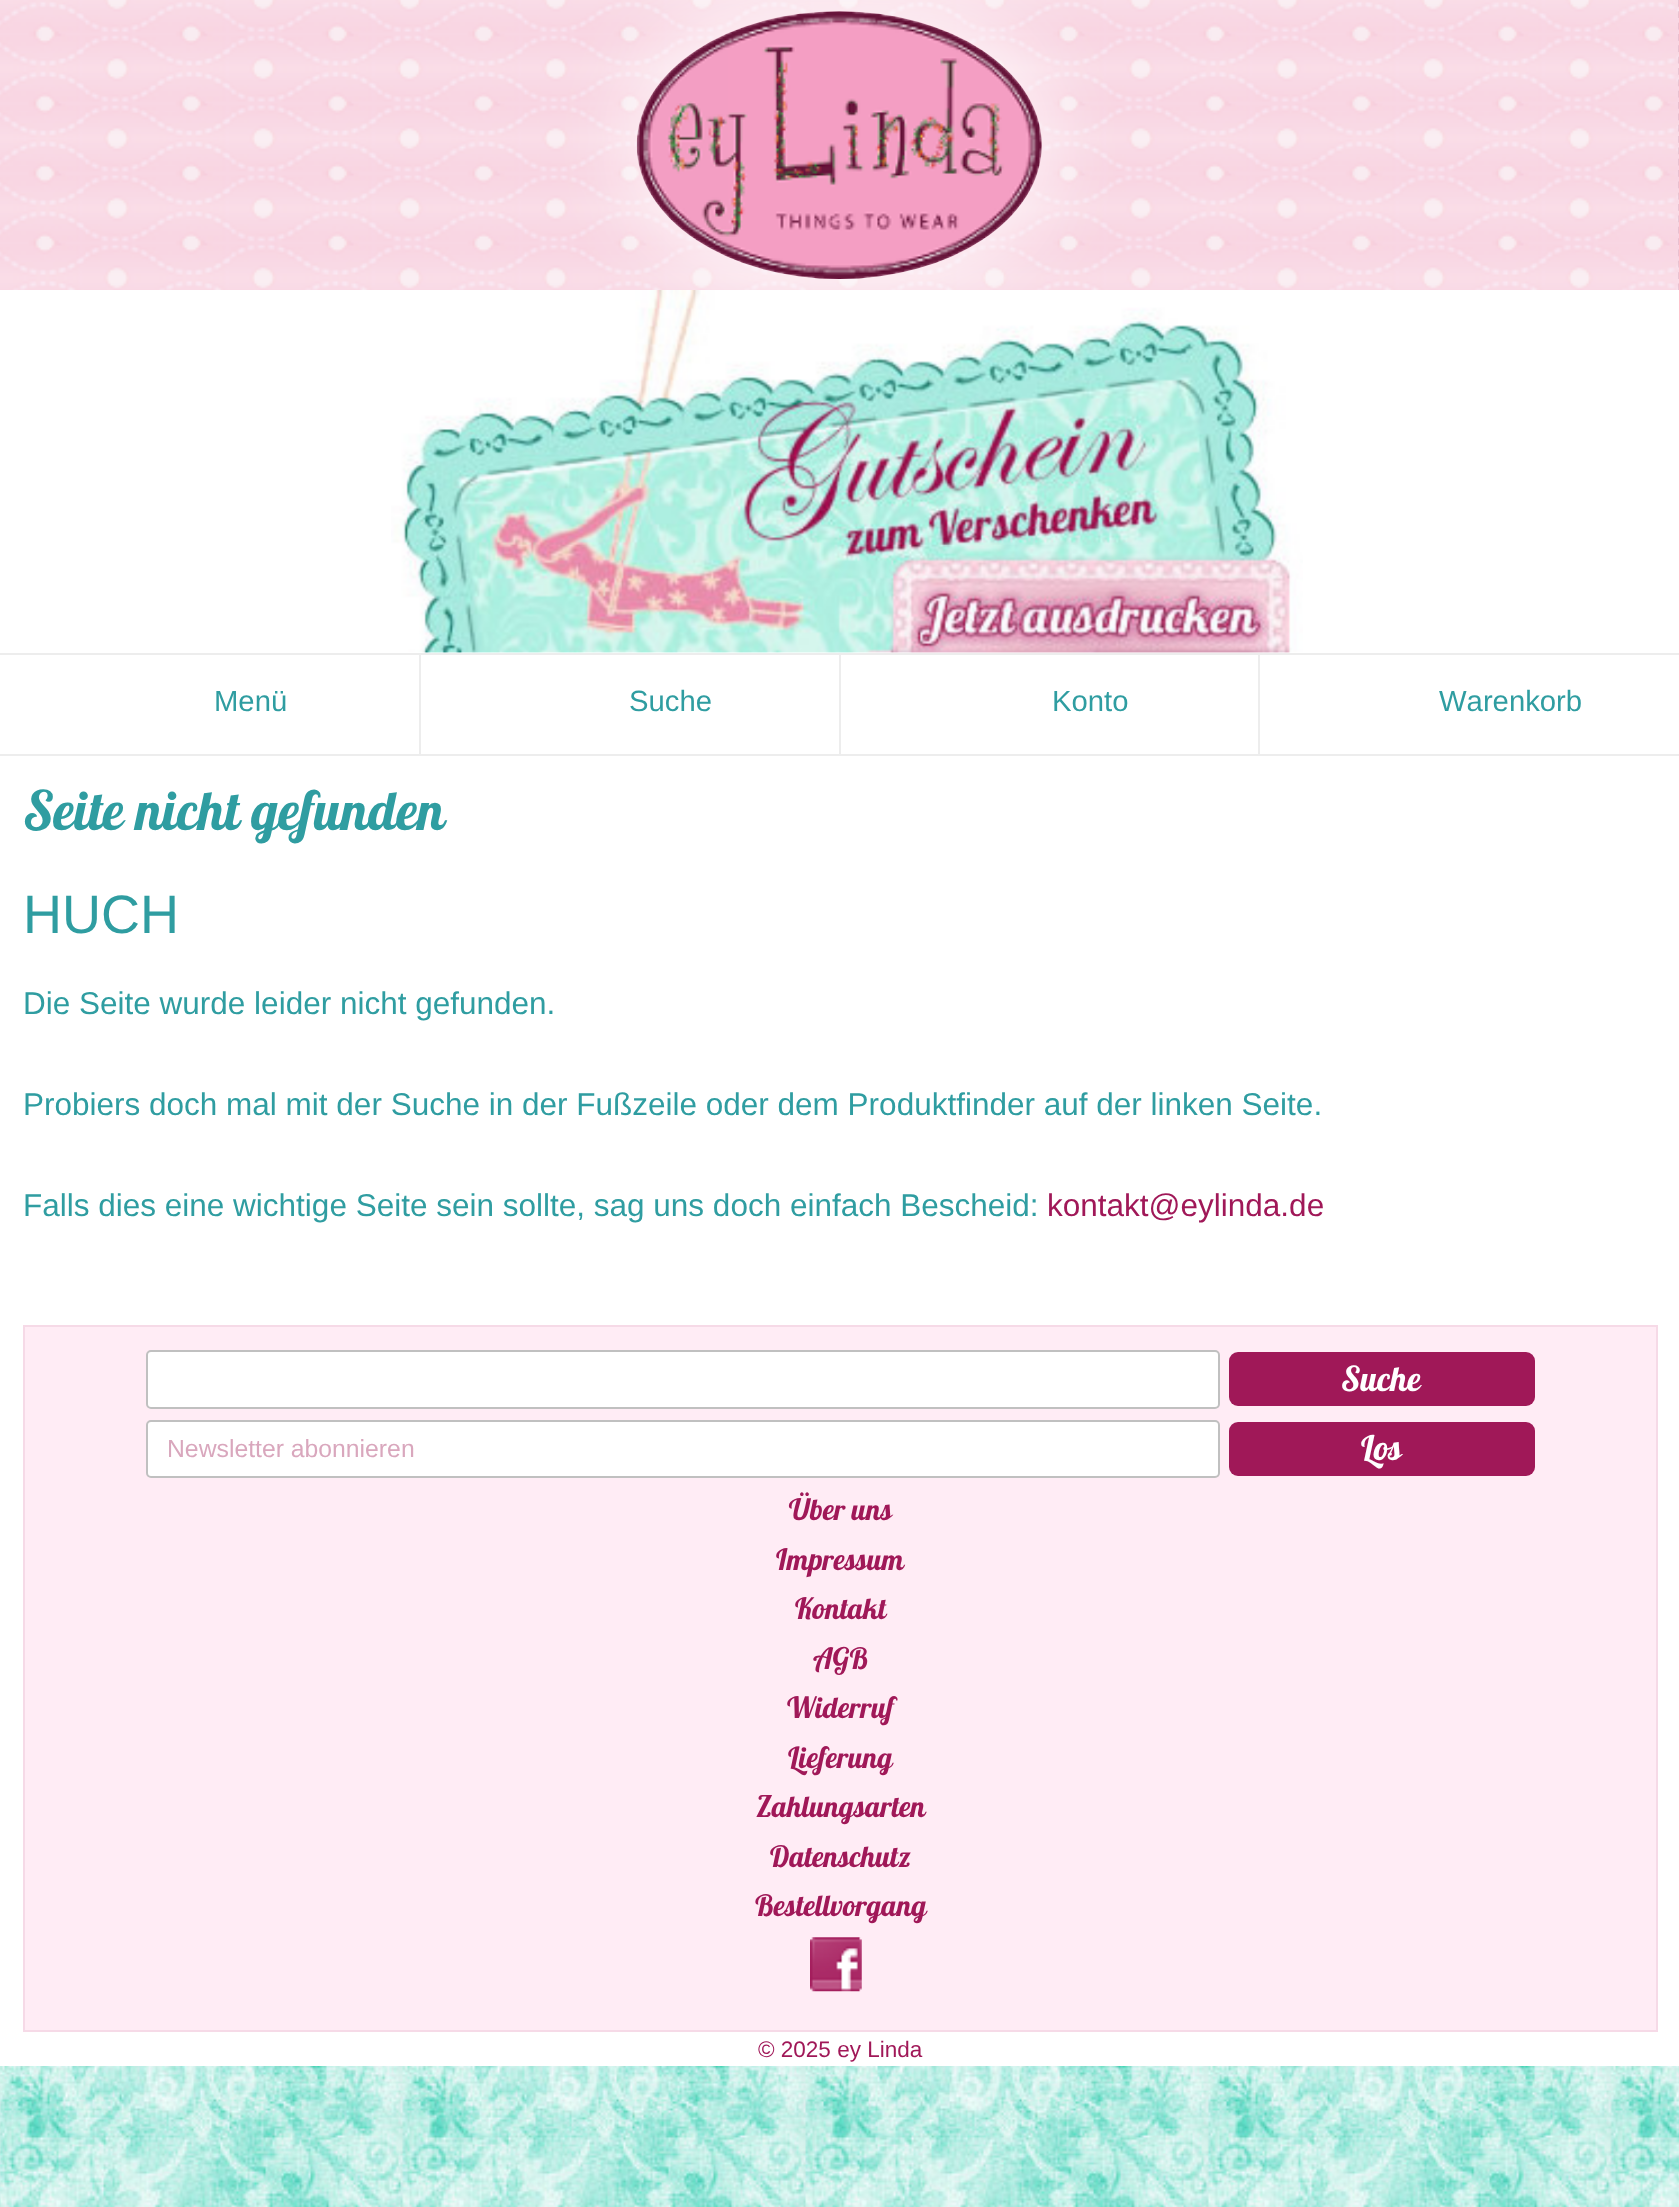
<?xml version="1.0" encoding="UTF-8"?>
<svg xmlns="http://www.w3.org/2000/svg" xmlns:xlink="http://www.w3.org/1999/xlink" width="1679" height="2207">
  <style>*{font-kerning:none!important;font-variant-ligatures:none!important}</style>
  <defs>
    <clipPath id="clip1"><path d="M 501 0 h 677 v 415 h -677 z m 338 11 c 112 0 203 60 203 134 c 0 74 -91 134 -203 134 c -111.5 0 -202 -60 -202 -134 c 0 -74 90.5 -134 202 -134 z" clip-rule="evenodd" /></clipPath>
  </defs>
  <rect width="100%" height="100%" fill="#ffffff" />
  <image x="0" y="2066" width="1679" height="141" xlink:href="image1.png" />
  <image x="0" y="0" width="1679" height="290" xlink:href="image2.png" />
  <path d="M 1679.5 0 v 290" fill="none" stroke="#d9a7bd" stroke-opacity="0.8" stroke-width="2.2" stroke-dasharray="6.75 4.59" />
  <g clip-path="url(#clip1)">
    <rect x="637" y="11" width="405" height="268" rx="134" fill="#ffffff" fill-opacity="0.8" filter="blur(45px)" />
  </g>
  <image x="636" y="11" width="406" height="268" xlink:href="image3.png" />
  <image x="391" y="290" width="912" height="363" xlink:href="image4.png" />
  <rect y="653" width="1679" height="2" fill="#ededed" />
  <rect y="754" width="1679" height="2" fill="#ededed" />
  <rect x="419" y="655" width="2" height="99" fill="#ededed" />
  <rect x="839" y="655" width="2" height="99" fill="#ededed" />
  <rect x="1258" y="655" width="2" height="99" fill="#ededed" />
  <rect x="24" y="1326" width="1633" height="705" fill="#ffecf5" stroke="#f6dae7" stroke-width="2" />
  <rect x="147" y="1351" width="1072" height="57" rx="4" fill="#ffffff" stroke="#c0c0c0" stroke-width="2" />
  <rect x="1229" y="1352" width="306" height="54" rx="9" fill="#a01858" />
  <rect x="147" y="1421" width="1072" height="56" rx="4" fill="#ffffff" stroke="#c0c0c0" stroke-width="2" />
  <rect x="1229" y="1422" width="306" height="54" rx="9" fill="#a01858" />
  <image x="810" y="1937" width="52" height="55" xlink:href="image5.png" />
  <text x="214" y="711" style="font-family: Liberation Sans; font-size: 29.25px; fill: #2f9da1">Menü</text>
  <text x="629" y="711" style="font-family: Liberation Sans; font-size: 29.25px; fill: #2f9da1">Suche</text>
  <text x="1052" y="711" style="font-family: Liberation Sans; font-size: 29.25px; fill: #2f9da1">Konto</text>
  <text x="1439" y="711" style="font-family: Liberation Sans; font-size: 29.25px; fill: #2f9da1">Warenkorb</text>
  <text x="23" y="830" style="font-family: Lobster; font-size: 54px; fill: #2f9da1">Seite nicht gefunden</text>
  <text x="23" y="933" style="font-family: Liberation Sans; font-size: 54px; fill: #2f9da1">HUCH</text>
  <text x="23" y="1014" style="font-family: Liberation Sans; font-size: 31.5px; fill: #2f9da1">Die Seite wurde leider nicht gefunden.</text>
  <text x="23" y="1115" style="font-family: Liberation Sans; font-size: 31.5px; fill: #2f9da1">Probiers doch mal mit der Suche in der Fußzeile oder dem Produktfinder auf der linken Seite.</text>
  <text x="23" y="1216" style="font-family: Liberation Sans; font-size: 31.5px; fill: #2f9da1">Falls dies eine wichtige Seite sein sollte, sag uns doch einfach Bescheid:</text>
  <text x="1047" y="1216" style="font-family: Liberation Sans; font-size: 31.5px; fill: #a01858">kontakt@eylinda.de</text>
  <text x="1341" y="1391" style="font-family: Lobster; font-size: 34px; fill: #ffffff">Suche</text>
  <text x="167" y="1457" style="font-family: Liberation Sans; font-size: 24.75px; fill: #d9a7bd">Newsletter abonnieren</text>
  <text x="1361" y="1460" style="font-family: Lobster; font-size: 34px; fill: #ffffff">Los</text>
  <text x="789" y="1520" style="font-family: Lobster; font-size: 29.25px; fill: #a01858">Über uns</text>
  <text x="776" y="1570" style="font-family: Lobster; font-size: 29.25px; fill: #a01858">Impressum</text>
  <text x="795" y="1619" style="font-family: Lobster; font-size: 29.25px; fill: #a01858">Kontakt</text>
  <text x="813" y="1669" style="font-family: Lobster; font-size: 29.25px; fill: #a01858">AGB</text>
  <text x="787" y="1718" style="font-family: Lobster; font-size: 29.25px; fill: #a01858">Widerruf</text>
  <text x="788" y="1768" style="font-family: Lobster; font-size: 29.25px; fill: #a01858">Lieferung</text>
  <text x="756" y="1817" style="font-family: Lobster; font-size: 29.25px; fill: #a01858">Zahlungsarten</text>
  <text x="770" y="1867" style="font-family: Lobster; font-size: 29.25px; fill: #a01858">Datenschutz</text>
  <text x="755" y="1916" style="font-family: Lobster; font-size: 29.25px; fill: #a01858">Bestellvorgang</text>
  <text x="758" y="2057" style="font-family: Liberation Sans; font-size: 22.5px; fill: #a01858">© 2025 ey Linda</text>
</svg>
